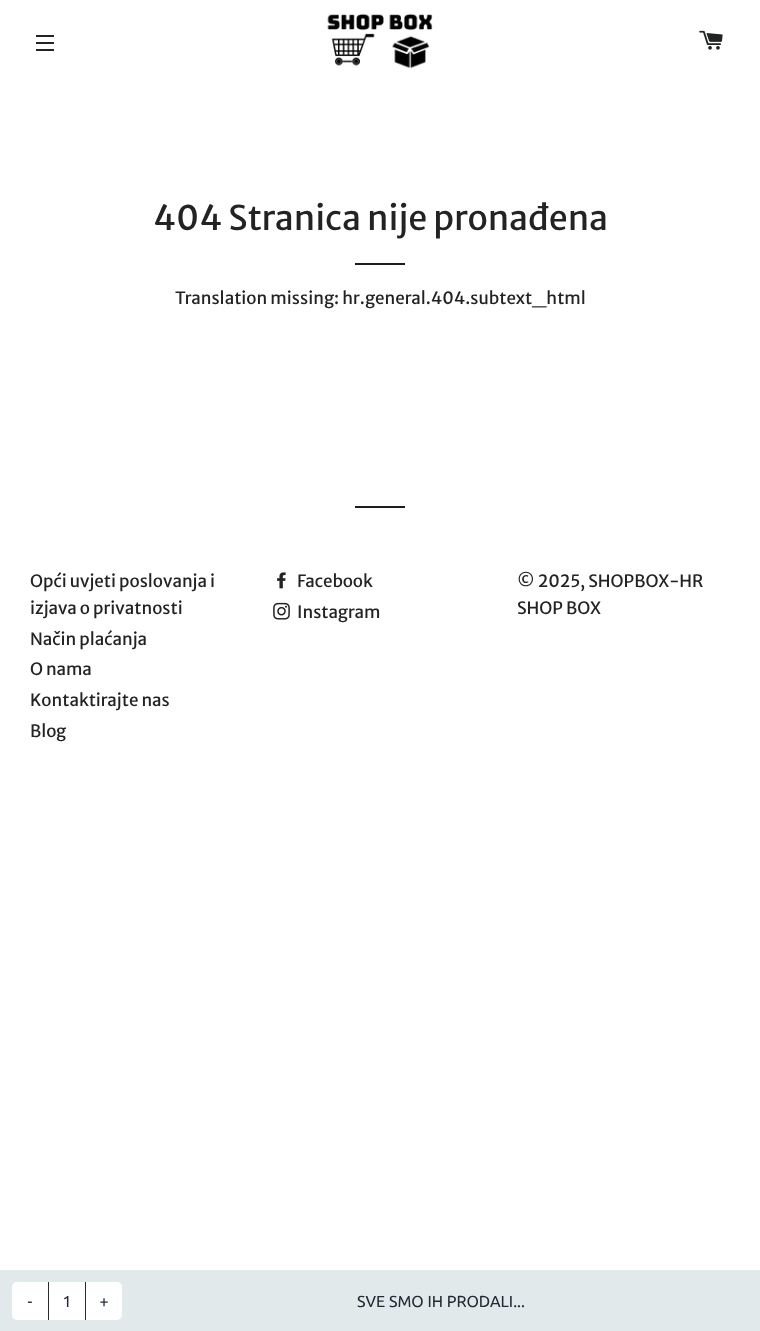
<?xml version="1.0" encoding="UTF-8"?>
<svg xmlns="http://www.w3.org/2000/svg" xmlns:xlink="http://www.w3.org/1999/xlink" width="760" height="1331">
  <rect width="100%" height="100%" fill="#ffffff" />
  <rect x="36" y="35" width="18" height="2" fill="#222323" />
  <rect x="36" y="42" width="18" height="2" fill="#222323" />
  <rect x="36" y="49" width="18" height="2" fill="#222323" />
  <image x="327" y="13" width="106" height="56" xlink:href="image1.png" />
  <image x="699" y="30" width="24" height="20" xlink:href="image2.png" />
  <rect x="355" y="263" width="50" height="2" fill="#1c1d1d" />
  <rect x="355" y="506" width="50" height="2" fill="#1c1d1d" />
  <image x="277" y="572" width="9" height="17" xlink:href="image3.png" />
  <image x="273" y="602" width="17" height="18" xlink:href="image4.png" />
  <image x="0" y="1270" width="760" height="61" xlink:href="image5.png" />
  <text x="153" y="230" style="font-family: Merriweather Sans; font-size: 34px; fill: #222323">404 Stranica nije pronađena</text>
  <text x="175" y="304" style="font-family: Merriweather Sans; font-size: 17px; fill: #222323">Translation missing: hr.general.404.subtext_html</text>
  <text x="30" y="587" style="font-family: Merriweather Sans; font-size: 17px; fill: #222323">Opći uvjeti poslovanja i</text>
  <text x="30" y="614" style="font-family: Merriweather Sans; font-size: 17px; fill: #222323">izjava o privatnosti</text>
  <text x="30" y="645" style="font-family: Merriweather Sans; font-size: 17px; fill: #222323">Način plaćanja</text>
  <text x="30" y="675" style="font-family: Merriweather Sans; font-size: 17px; fill: #222323">O nama</text>
  <text x="30" y="706" style="font-family: Merriweather Sans; font-size: 17px; fill: #222323">Kontaktirajte nas</text>
  <text x="30" y="737" style="font-family: Merriweather Sans; font-size: 17px; fill: #222323">Blog</text>
  <text x="297" y="587" style="font-family: Merriweather Sans; font-size: 17px; fill: #222323">Facebook</text>
  <text x="297" y="618" style="font-family: Merriweather Sans; font-size: 17px; fill: #222323">Instagram</text>
  <text x="517" y="587" style="font-family: Merriweather Sans; font-size: 17px; fill: #222323">© 2025, SHOPBOX-HR</text>
  <text x="517" y="614" style="font-family: Merriweather Sans; font-size: 17px; fill: #222323">SHOP BOX</text>
</svg>
